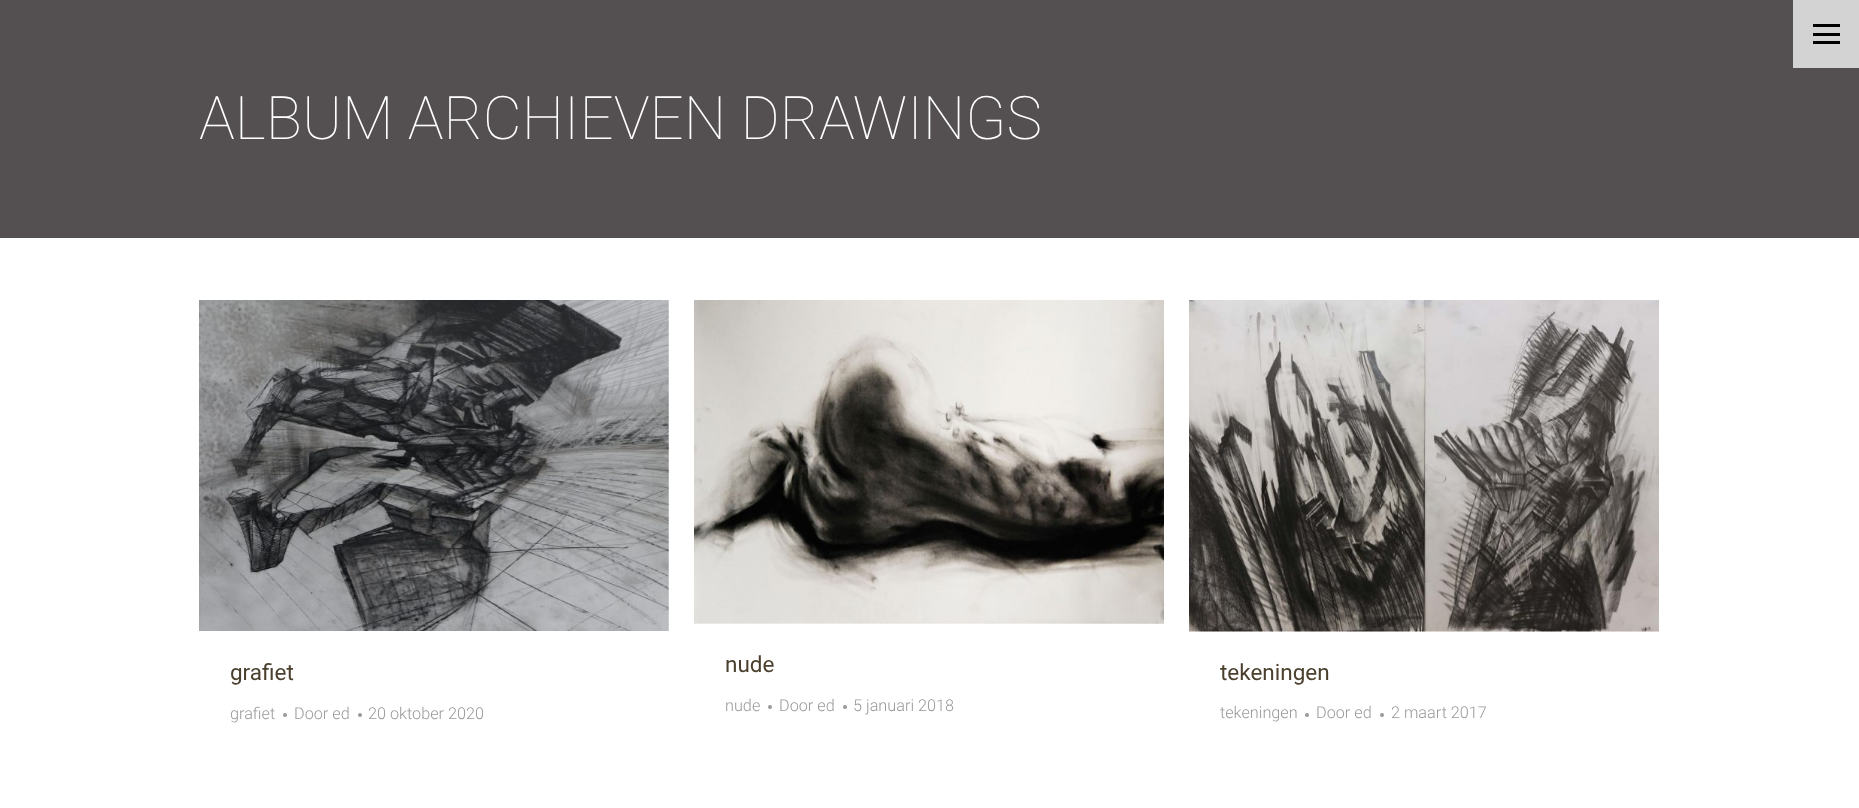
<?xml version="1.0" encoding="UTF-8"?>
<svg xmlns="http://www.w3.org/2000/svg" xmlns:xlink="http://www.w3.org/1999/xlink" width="1859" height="808">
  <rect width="100%" height="100%" fill="#ffffff" />
  <rect width="1859" height="238" fill="#544f50" />
  <rect x="1793" width="66" height="68" fill="#d4d3d3" />
  <rect x="1813" y="24" width="27" height="3" fill="#000000" />
  <rect x="1813" y="33" width="27" height="3" fill="#000000" />
  <rect x="1813" y="41" width="27" height="3" fill="#000000" />
  <image x="199" y="300" width="470" height="331" xlink:href="image1.png" />
  <circle cx="285" cy="715" r="2" fill="#999999" />
  <circle cx="360" cy="715" r="2" fill="#999999" />
  <image x="694" y="300" width="470" height="324" xlink:href="image2.png" />
  <circle cx="770" cy="707" r="2" fill="#999999" />
  <circle cx="845" cy="707" r="2" fill="#999999" />
  <image x="1189" y="300" width="470" height="332" xlink:href="image3.png" />
  <circle cx="1307" cy="715" r="2" fill="#999999" />
  <circle cx="1382" cy="715" r="2" fill="#999999" />
  <text x="199" y="139" style="font-family: Roboto; font-size: 60px; font-weight: 100; fill: #ffffff">ALBUM ARCHIEVEN DRAWINGS</text>
  <text x="230" y="680" style="font-family: Roboto; font-size: 22.5px; fill: #4b402e">grafiet</text>
  <text x="230" y="719" style="font-family: Roboto; font-size: 16.25px; font-weight: 300; fill: #999999">grafiet</text>
  <text x="294" y="719" style="font-family: Roboto; font-size: 16.25px; font-weight: 300; fill: #999999">Door ed</text>
  <text x="368" y="719" style="font-family: Roboto; font-size: 16.25px; font-weight: 300; fill: #999999">20 oktober 2020</text>
  <text x="725" y="672" style="font-family: Roboto; font-size: 22.5px; fill: #4b402e">nude</text>
  <text x="725" y="711" style="font-family: Roboto; font-size: 16.25px; font-weight: 300; fill: #999999">nude</text>
  <text x="779" y="711" style="font-family: Roboto; font-size: 16.25px; font-weight: 300; fill: #999999">Door ed</text>
  <text x="853" y="711" style="font-family: Roboto; font-size: 16.25px; font-weight: 300; fill: #999999">5 januari 2018</text>
  <text x="1220" y="680" style="font-family: Roboto; font-size: 22.5px; fill: #4b402e">tekeningen</text>
  <text x="1220" y="718" style="font-family: Roboto; font-size: 16.25px; font-weight: 300; fill: #999999">tekeningen</text>
  <text x="1316" y="718" style="font-family: Roboto; font-size: 16.25px; font-weight: 300; fill: #999999">Door ed</text>
  <text x="1391" y="718" style="font-family: Roboto; font-size: 16.25px; font-weight: 300; fill: #999999">2 maart 2017</text>
</svg>
